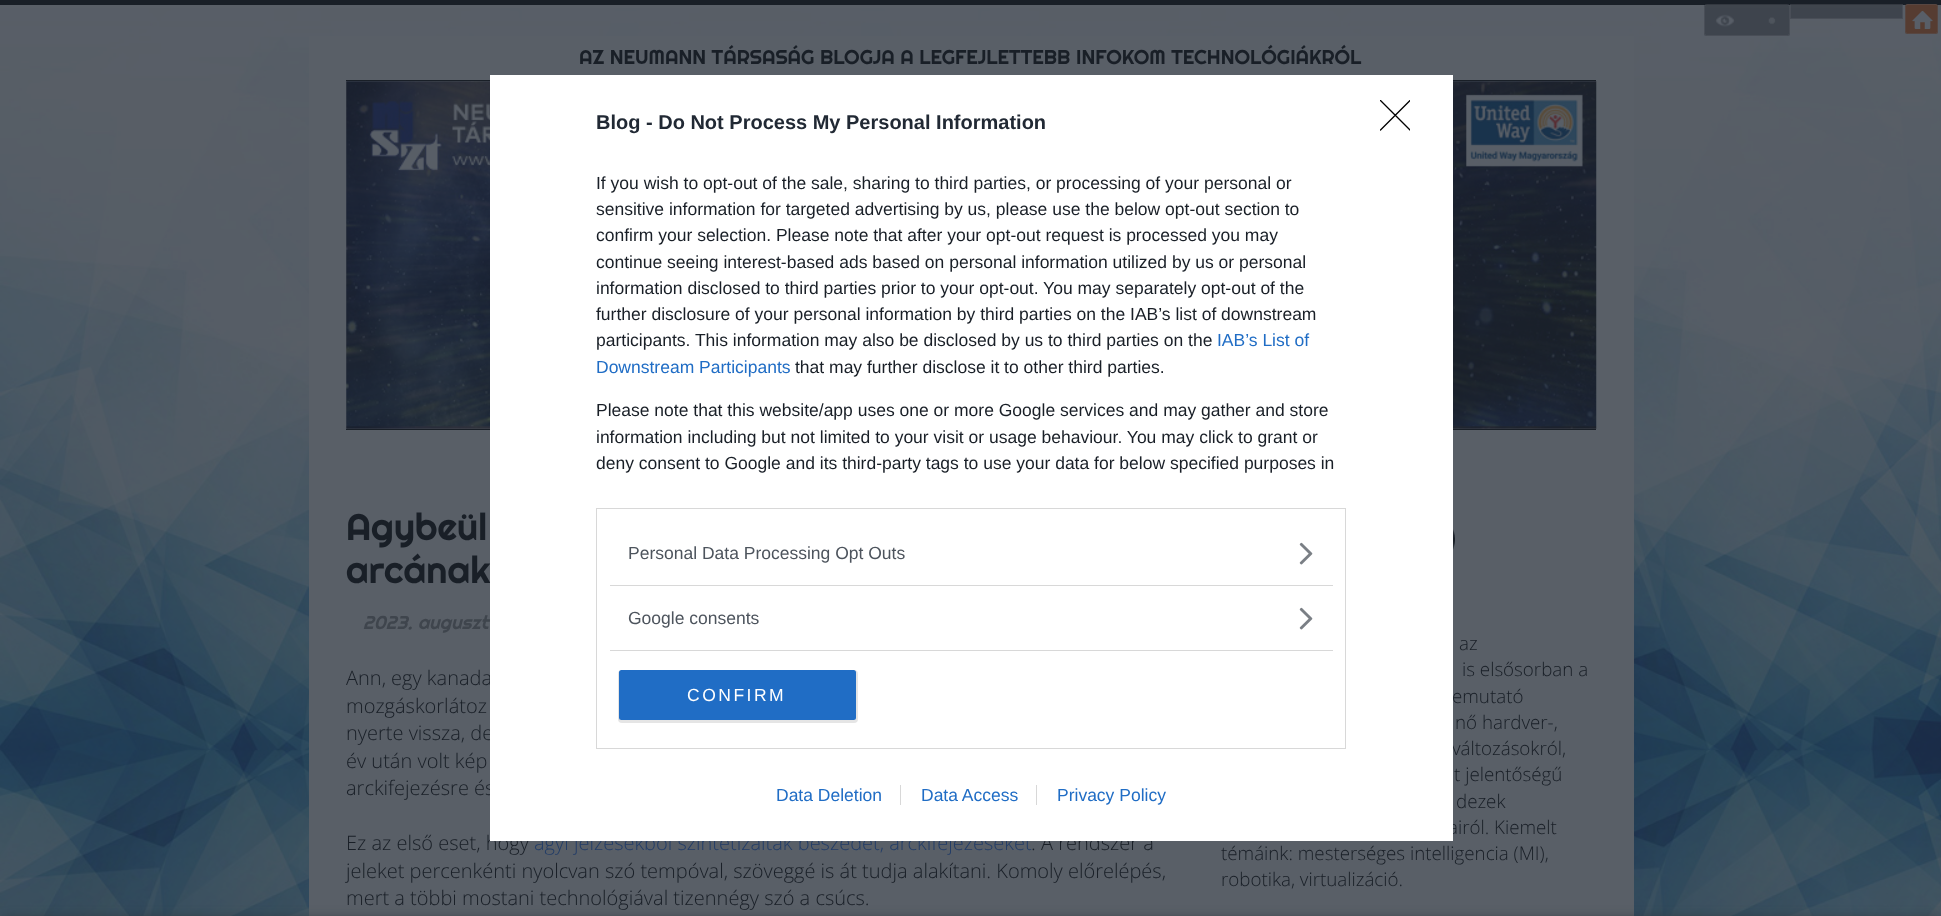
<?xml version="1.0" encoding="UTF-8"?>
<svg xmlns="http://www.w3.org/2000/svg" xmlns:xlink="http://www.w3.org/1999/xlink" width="1941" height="916">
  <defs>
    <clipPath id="clip1"><rect x="1380" y="100" width="30" height="31" /></clipPath>
  </defs>
  <rect width="100%" height="100%" fill="#595f67" />
  <image x="0" y="8" width="1941" height="908" xlink:href="image1.png" />
  <rect width="1941" height="5" fill="#191f27" />
  <rect x="1704" y="4" width="86" height="32" rx="2.5" fill="#191f27" fill-opacity="0.4" />
  <rect x="1704.5" y="4.5" width="85" height="31" rx="2" fill="none" stroke="#595f67" stroke-opacity="0.4" />
  <image x="1715" y="14" width="20" height="13" xlink:href="image2.png" />
  <image x="1768" y="17" width="8" height="8" xlink:href="image3.png" />
  <rect x="1790" y="5" width="113" height="14" fill="#191f27" fill-opacity="0.4" />
  <rect x="1790.5" y="4.5" width="112" height="14" fill="none" stroke="#595f67" stroke-opacity="0.4" />
  <rect x="1905" y="4" width="33" height="30" rx="2.5" fill="#563c31" />
  <rect x="1905.5" y="4.5" width="32" height="29" rx="2" fill="none" stroke="#595f67" stroke-opacity="0.3" />
  <image x="1912" y="10" width="21" height="19" xlink:href="image4.png" />
  <rect x="309" y="36" width="1325" height="880" fill="#595f67" />
  <rect x="346" y="80" width="1250" height="1" fill="#191f27" />
  <rect x="346" y="429" width="1250" height="1" fill="#191f27" />
  <image x="346" y="81" width="1251" height="348" xlink:href="image5.png" />
  <image x="1453" y="529" width="2" height="21" xlink:href="image6.png" />
  <rect x="3" y="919" width="1936" height="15" fill="#2c323a" fill-opacity="0.8" filter="blur(6px)" />
  <text x="579" y="64" style="font-family: Righteous; font-size: 20px; fill: #191f27">AZ NEUMANN TÁRSASÁG BLOGJA A LEGFEJLETTEBB INFOKOM TECHNOLÓGIÁKRÓL</text>
  <text x="346" y="540" style="font-family: Righteous; font-size: 37.5px; fill: #191f27">Agybeül</text>
  <text x="346" y="583" style="font-family: Righteous; font-size: 37.5px; fill: #191f27">arcának</text>
  <text x="363" y="629" style="font-family: Righteous; font-size: 18.75px; font-style: italic; fill: #3f454d">2023. auguszt</text>
  <text x="346" y="685" style="font-family: Open Sans; font-size: 20px; font-weight: 300; fill: #191f27">Ann, egy kanada</text>
  <text x="346" y="713" style="font-family: Open Sans; font-size: 20px; font-weight: 300; fill: #191f27">mozgáskorlátoz</text>
  <text x="346" y="740" style="font-family: Open Sans; font-size: 20px; font-weight: 300; fill: #191f27">nyerte vissza, de</text>
  <text x="346" y="768" style="font-family: Open Sans; font-size: 20px; font-weight: 300; fill: #191f27">év után volt kép</text>
  <text x="346" y="795" style="font-family: Open Sans; font-size: 20px; font-weight: 300; fill: #191f27">arckifejezésre és</text>
  <text x="346" y="850" style="font-family: Open Sans; font-size: 20px; font-weight: 300; fill: #191f27">Ez az első eset, hogy</text>
  <text x="534" y="850" style="font-family: Open Sans; font-size: 20px; font-weight: 300; fill: #233d67">agyi jelzésekből szintetizáltak beszédet, arckifejezéseket</text>
  <text x="1031" y="850" style="font-family: Open Sans; font-size: 20px; font-weight: 300; fill: #191f27">. A rendszer a</text>
  <text x="346" y="878" style="font-family: Open Sans; font-size: 20px; font-weight: 300; fill: #191f27">jeleket percenkénti nyolcvan szó tempóval, szöveggé is át tudja alakítani. Komoly előrelépés,</text>
  <text x="346" y="905" style="font-family: Open Sans; font-size: 20px; font-weight: 300; fill: #191f27">mert a többi mostani technológiával tizennégy szó a csúcs.</text>
  <text x="1459" y="650" style="font-family: Open Sans; font-size: 18.75px; font-weight: 300; fill: #191f27">az</text>
  <text x="1462" y="676" style="font-family: Open Sans; font-size: 18.75px; font-weight: 300; fill: #191f27">is elsősorban a</text>
  <text x="1452" y="703" style="font-family: Open Sans; font-size: 18.75px; font-weight: 300; fill: #191f27">emutató</text>
  <text x="1455" y="729" style="font-family: Open Sans; font-size: 18.75px; font-weight: 300; fill: #191f27">nő hardver-,</text>
  <text x="1452" y="755" style="font-family: Open Sans; font-size: 18.75px; font-weight: 300; fill: #191f27">változásokról,</text>
  <text x="1454" y="781" style="font-family: Open Sans; font-size: 18.75px; font-weight: 300; fill: #191f27">t jelentőségű</text>
  <text x="1456" y="808" style="font-family: Open Sans; font-size: 18.75px; font-weight: 300; fill: #191f27">dezek</text>
  <text x="1448" y="834" style="font-family: Open Sans; font-size: 18.75px; font-weight: 300; fill: #191f27">airól. Kiemelt</text>
  <text x="1221" y="860" style="font-family: Open Sans; font-size: 18.75px; font-weight: 300; fill: #191f27">témáink: mesterséges intelligencia (MI),</text>
  <text x="1221" y="886" style="font-family: Open Sans; font-size: 18.75px; font-weight: 300; fill: #191f27">robotika, virtualizáció.</text>
  <rect x="490" y="75" width="963" height="766" fill="#ffffff" />
  <text x="596" y="129" style="font-family: Liberation Sans; font-size: 20px; font-weight: bold; fill: #212934">Blog - Do Not Process My Personal Information</text>
  <text x="596" y="189" style="font-family: Liberation Sans; font-size: 17.5px; fill: #191f27">If you wish to opt-out of the sale, sharing to third parties, or processing of your personal or</text>
  <text x="596" y="215" style="font-family: Liberation Sans; font-size: 17.5px; fill: #191f27">sensitive information for targeted advertising by us, please use the below opt-out section to</text>
  <text x="596" y="241" style="font-family: Liberation Sans; font-size: 17.5px; fill: #191f27">confirm your selection. Please note that after your opt-out request is processed you may</text>
  <text x="596" y="268" style="font-family: Liberation Sans; font-size: 17.5px; fill: #191f27">continue seeing interest-based ads based on personal information utilized by us or personal</text>
  <text x="596" y="294" style="font-family: Liberation Sans; font-size: 17.5px; fill: #191f27">information disclosed to third parties prior to your opt-out. You may separately opt-out of the</text>
  <text x="596" y="320" style="font-family: Liberation Sans; font-size: 17.5px; fill: #191f27">further disclosure of your personal information by third parties on the IAB’s list of downstream</text>
  <text x="596" y="346" style="font-family: Liberation Sans; font-size: 17.5px; fill: #191f27">participants. This information may also be disclosed by us to third parties on the</text>
  <text x="1217" y="346" style="font-family: Liberation Sans; font-size: 17.5px; fill: #206dc5">IAB’s List of</text>
  <text x="596" y="373" style="font-family: Liberation Sans; font-size: 17.5px; fill: #206dc5">Downstream Participants</text>
  <text x="795" y="373" style="font-family: Liberation Sans; font-size: 17.5px; fill: #191f27">that may further disclose it to other third parties.</text>
  <text x="596" y="416" style="font-family: Liberation Sans; font-size: 17.5px; fill: #191f27">Please note that this website/app uses one or more Google services and may gather and store</text>
  <text x="596" y="443" style="font-family: Liberation Sans; font-size: 17.5px; fill: #191f27">information including but not limited to your visit or usage behaviour. You may click to grant or</text>
  <text x="596" y="469" style="font-family: Liberation Sans; font-size: 17.5px; fill: #191f27">deny consent to Google and its third-party tags to use your data for below specified purposes in</text>
  <rect x="596.5" y="508.5" width="749" height="240" fill="none" stroke="#d8d8d8" />
  <rect x="610" y="585" width="723" height="1" fill="#d8d8d8" />
  <text x="628" y="559" style="font-family: Liberation Sans; font-size: 17.5px; fill: #4d545d">Personal Data Processing Opt Outs</text>
  <image x="1299" y="542" width="14" height="23" xlink:href="image7.png" />
  <rect x="610" y="650" width="723" height="1" fill="#d8d8d8" />
  <text x="628" y="624" style="font-family: Liberation Sans; font-size: 17.5px; fill: #4d545d">Google consents</text>
  <image x="1299" y="607" width="14" height="23" xlink:href="image7.png" />
  <rect x="618" y="670" width="240" height="53" rx="4" fill="#000000" fill-opacity="0.1" filter="blur(0.5px)" />
  <rect x="619" y="670" width="237" height="50" rx="2.5" fill="#206dc5" />
  <text x="687" y="701" style="font-family: Liberation Sans; font-size: 17.5px; letter-spacing: 2.5px; fill: #ffffff">CONFIRM</text>
  <g clip-path="url(#clip1)">
    <path d="M 1380.5 100.5 l 29.5 29.5 m 0 -29.5 l -29.5 29.5" fill="none" stroke="#000000" stroke-width="1.3" stroke-linecap="round" stroke-linejoin="round" />
  </g>
  <text x="776" y="801" style="font-family: Liberation Sans; font-size: 17.5px; fill: #206dc5">Data Deletion</text>
  <text x="921" y="801" style="font-family: Liberation Sans; font-size: 17.5px; fill: #206dc5">Data Access</text>
  <rect x="900" y="785" width="1" height="20" fill="#d8d8d8" />
  <text x="1057" y="801" style="font-family: Liberation Sans; font-size: 17.5px; fill: #206dc5">Privacy Policy</text>
  <rect x="1036" y="785" width="1" height="20" fill="#d8d8d8" />
</svg>
